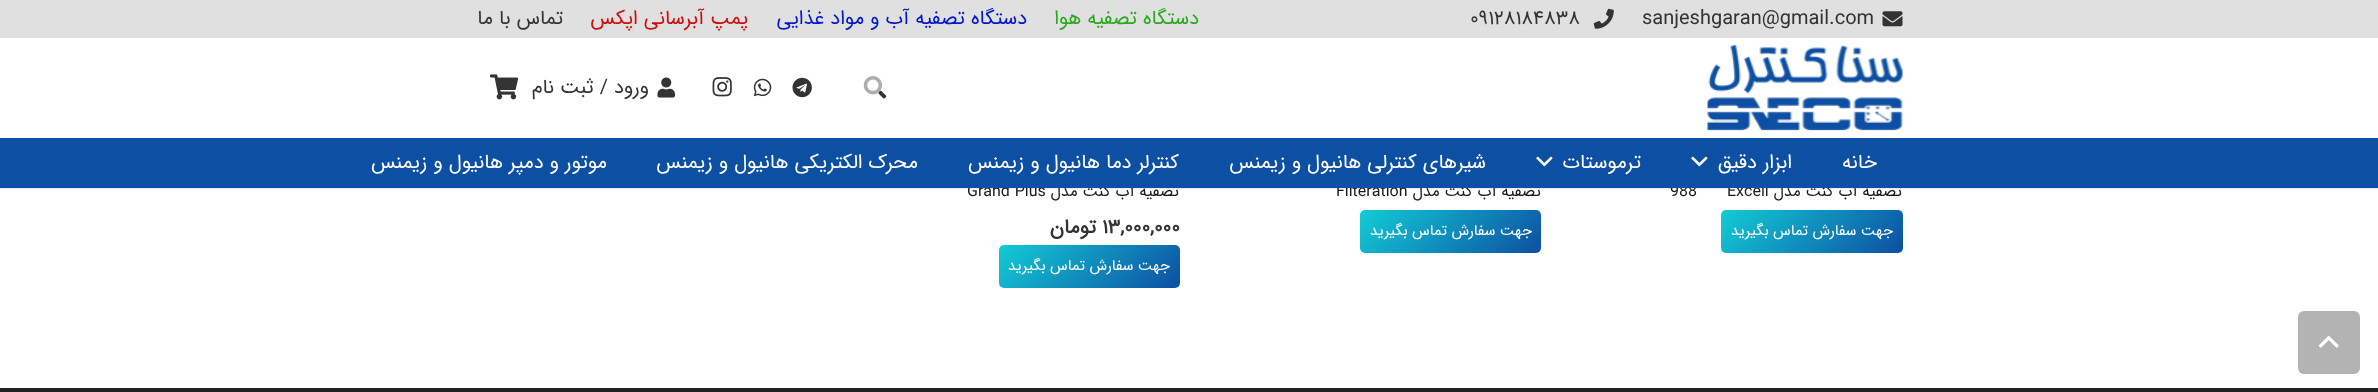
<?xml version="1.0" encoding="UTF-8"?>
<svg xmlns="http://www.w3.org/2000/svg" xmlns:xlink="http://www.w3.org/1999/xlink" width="2378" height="392">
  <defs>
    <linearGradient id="g1" gradientUnits="userSpaceOnUse" x1="1756" y1="175" x2="1868" y2="287"><stop offset="0" stop-color="#13ccd6" /><stop offset="1" stop-color="#0d4fa2" /></linearGradient>
    <linearGradient id="g2" gradientUnits="userSpaceOnUse" x1="1395" y1="175" x2="1507" y2="287"><stop offset="0" stop-color="#13ccd6" /><stop offset="1" stop-color="#0d4fa2" /></linearGradient>
    <linearGradient id="g3" gradientUnits="userSpaceOnUse" x1="1033" y1="210" x2="1145" y2="322"><stop offset="0" stop-color="#13ccd6" /><stop offset="1" stop-color="#0d4fa2" /></linearGradient>
  </defs>
  <rect width="100%" height="100%" fill="#ffffff" />
  <rect width="2378" height="38" fill="#e0e0e0" />
  <image x="1882" y="11" width="21" height="16" xlink:href="image1.png" />
  <image x="1593" y="8" width="21" height="21" xlink:href="image2.png" />
  <image x="1707" y="44" width="196" height="87" xlink:href="image3.png" />
  <image x="878" y="90" width="9" height="9" xlink:href="image4.png" />
  <image x="863" y="76" width="19" height="19" xlink:href="image5.png" />
  <image x="792" y="77" width="20" height="21" xlink:href="image6.png" />
  <image x="753" y="78" width="19" height="19" xlink:href="image7.png" />
  <image x="712" y="77" width="20" height="20" xlink:href="image8.png" />
  <image x="657" y="77" width="18" height="21" xlink:href="image9.png" />
  <image x="490" y="74" width="29" height="26" xlink:href="image10.png" />
  <path d="M 0 188 v 1 h 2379 v -50 v 49 z" fill="#000000" fill-opacity="0.08" />
  <rect x="1721" y="210" width="182" height="43" rx="5" fill="url(#g1)" />
  <rect x="1360" y="210" width="181" height="43" rx="5" fill="url(#g2)" />
  <rect x="999" y="245" width="181" height="43" rx="5" fill="url(#g3)" />
  <rect x="2298" y="311" width="62" height="63" rx="6" fill="#b3b3b3" />
  <image x="2318" y="335" width="21" height="13" xlink:href="image12.png" />
  <rect y="388" width="2378" height="4" fill="#222222" />
  <text x="1642" y="24" style="font-family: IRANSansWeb; font-size: 20px; fill: #333333">sanjeshgaran@gmail.com</text>
  <text x="1470" y="24" style="font-family: IRANSansWeb; font-size: 20px; fill: #333333">۰۹۱۲۸۱۸۴۸۳۸</text>
  <text x="1199" y="24" style="font-family: IRANSansWeb; font-size: 20px; direction: rtl; fill: #2ca81e">دستگاه تصفیه هوا</text>
  <text x="1027" y="24" style="font-family: IRANSansWeb; font-size: 20px; direction: rtl; fill: #0015cf">دستگاه تصفیه آب و مواد غذایی</text>
  <text x="748" y="24" style="font-family: IRANSansWeb; font-size: 20px; direction: rtl; fill: #d10a0a">پمپ آبرسانی اپکس</text>
  <text x="563" y="24" style="font-family: IRANSansWeb; font-size: 20px; direction: rtl; fill: #333333">تماس با ما</text>
  <text x="649" y="93" style="font-family: IRANSansWeb; font-size: 20px; direction: rtl; fill: #333333">ورود / ثبت نام</text>
  <text x="1902" y="196" style="font-family: IRANSansWeb; font-size: 16px; direction: rtl; fill: #1a1a1a">تصفیه آب کنت مدل</text>
  <text x="1727" y="196" style="font-family: IRANSansWeb; font-size: 16px; fill: #1a1a1a">Excell</text>
  <text x="1670" y="196" style="font-family: IRANSansWeb; font-size: 16px; fill: #1a1a1a">988</text>
  <text x="1893" y="235" style="font-family: IRANSansWeb; font-size: 15px; direction: rtl; fill: #ffffff">جهت سفارش تماس بگیرید</text>
  <text x="1541" y="196" style="font-family: IRANSansWeb; font-size: 16px; direction: rtl; fill: #1a1a1a">تصفیه آب کنت مدل</text>
  <text x="1336" y="196" style="font-family: IRANSansWeb; font-size: 16px; fill: #1a1a1a">Filteration</text>
  <text x="1532" y="235" style="font-family: IRANSansWeb; font-size: 15px; direction: rtl; fill: #ffffff">جهت سفارش تماس بگیرید</text>
  <text x="1179" y="196" style="font-family: IRANSansWeb; font-size: 16px; direction: rtl; fill: #1a1a1a">تصفیه آب کنت مدل</text>
  <text x="967" y="196" style="font-family: IRANSansWeb; font-size: 16px; fill: #1a1a1a">Grand Plus</text>
  <rect y="138" width="2378" height="50" fill="#0d4fa2" />
  <text x="607" y="168" style="font-family: IRANSansWeb; font-size: 20px; direction: rtl; fill: #ffffff">موتور و دمپر هانیول و زیمنس</text>
  <text x="918" y="168" style="font-family: IRANSansWeb; font-size: 20px; direction: rtl; fill: #ffffff">محرک الکتریکی هانیول و زیمنس</text>
  <text x="1179" y="168" style="font-family: IRANSansWeb; font-size: 20px; direction: rtl; fill: #ffffff">کنترلر دما هانیول و زیمنس</text>
  <text x="1486" y="168" style="font-family: IRANSansWeb; font-size: 20px; direction: rtl; fill: #ffffff">شیرهای کنترلی هانیول و زیمنس</text>
  <image x="1536" y="156" width="17" height="11" xlink:href="image11.png" />
  <text x="1641" y="168" style="font-family: IRANSansWeb; font-size: 20px; direction: rtl; fill: #ffffff">ترموستات</text>
  <image x="1691" y="156" width="17" height="11" xlink:href="image11.png" />
  <text x="1792" y="168" style="font-family: IRANSansWeb; font-size: 20px; direction: rtl; fill: #ffffff">ابزار دقیق</text>
  <text x="1877" y="168" style="font-family: IRANSansWeb; font-size: 20px; direction: rtl; fill: #ffffff">خانه</text>
  <text x="1102" y="233" style="font-family: IRANSansWeb; font-size: 20px; font-weight: bold; fill: #333333">۱۳,۰۰۰,۰۰۰</text>
  <text x="1096" y="233" style="font-family: IRANSansWeb; font-size: 20px; font-weight: bold; direction: rtl; fill: #333333">تومان</text>
  <text x="1170" y="270" style="font-family: IRANSansWeb; font-size: 15px; direction: rtl; fill: #ffffff">جهت سفارش تماس بگیرید</text>
</svg>
